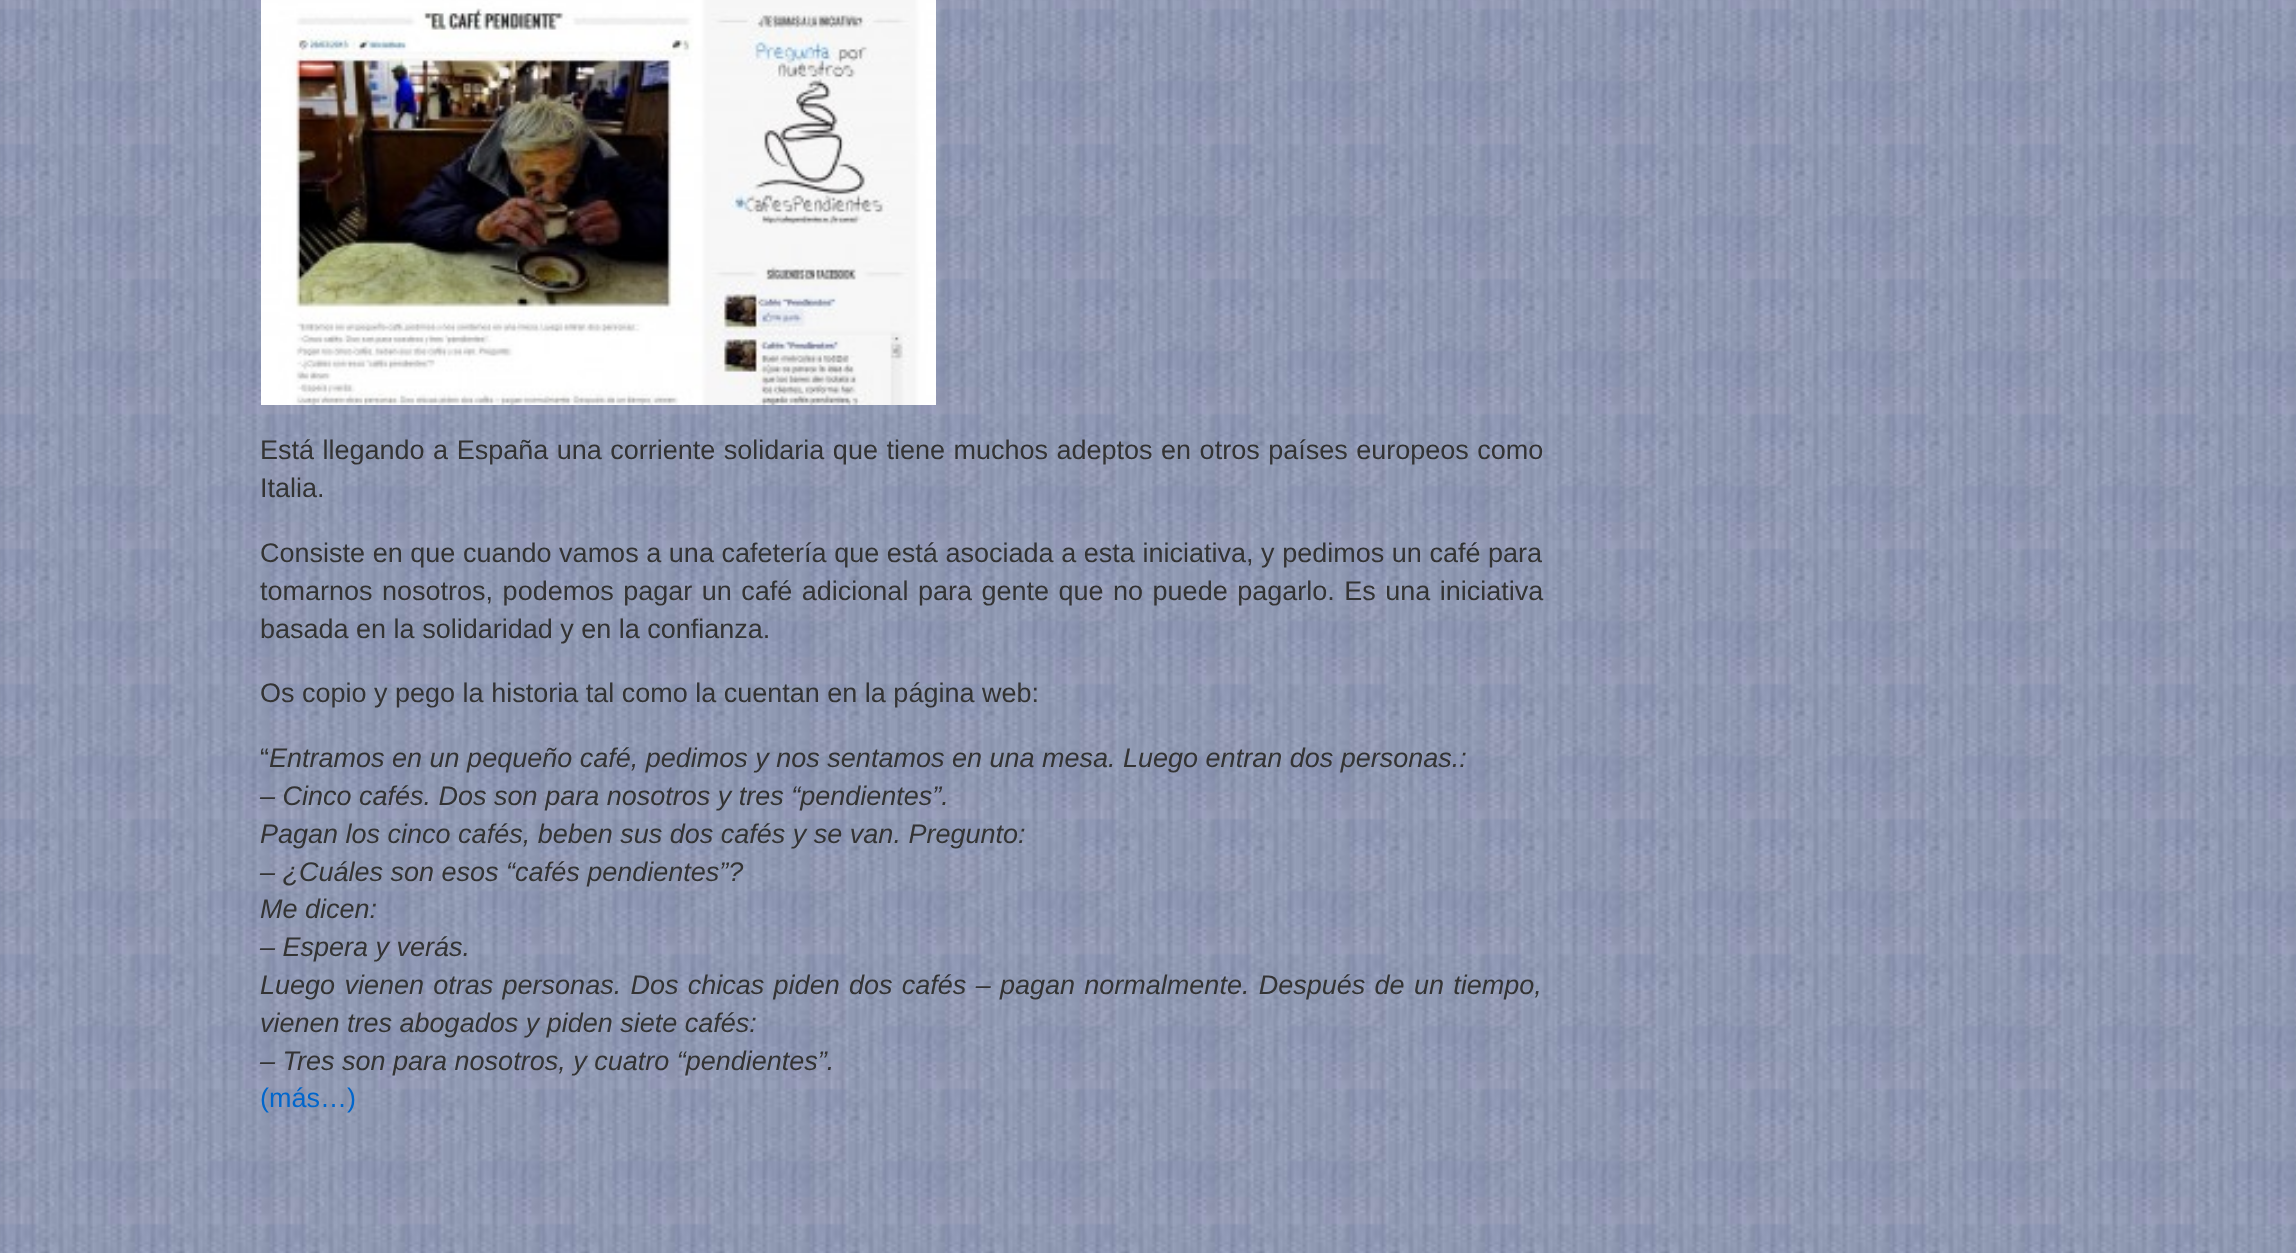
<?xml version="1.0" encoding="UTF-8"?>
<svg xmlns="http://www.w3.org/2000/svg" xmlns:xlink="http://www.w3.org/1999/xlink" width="2296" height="1253">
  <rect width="100%" height="100%" fill="#ffffff" />
  <image x="0" y="0" width="2296" height="1253" xlink:href="image1.png" />
  <image x="261" y="0" width="675" height="405" xlink:href="image2.png" />
  <text x="260" y="459" word-spacing="1" style="font-family: Liberation Sans; font-size: 27px; fill: #333333">Está llegando a España una corriente solidaria que tiene muchos adeptos en otros países europeos como</text>
  <text x="260" y="497" style="font-family: Liberation Sans; font-size: 27px; fill: #333333">Italia.</text>
  <text x="260" y="562" word-spacing="0.1" style="font-family: Liberation Sans; font-size: 27px; fill: #333333">Consiste en que cuando vamos a una cafetería que está asociada a esta iniciativa, y pedimos un café para</text>
  <text x="260" y="600" word-spacing="2" style="font-family: Liberation Sans; font-size: 27px; fill: #333333">tomarnos nosotros, podemos pagar un café adicional para gente que no puede pagarlo. Es una iniciativa</text>
  <text x="260" y="638" style="font-family: Liberation Sans; font-size: 27px; fill: #333333">basada en la solidaridad y en la confianza.</text>
  <text x="260" y="702" style="font-family: Liberation Sans; font-size: 27px; fill: #333333">Os copio y pego la historia tal como la cuentan en la página web:</text>
  <text x="260" y="767" style="font-family: Liberation Sans; font-size: 27px; fill: #333333">“</text>
  <text x="269" y="767" style="font-family: Liberation Sans; font-size: 27px; font-style: italic; fill: #333333">Entramos en un pequeño café, pedimos y nos sentamos en una mesa. Luego entran dos personas.:</text>
  <text x="260" y="805" style="font-family: Liberation Sans; font-size: 27px; font-style: italic; fill: #333333">– Cinco cafés. Dos son para nosotros y tres “pendientes”.</text>
  <text x="260" y="843" style="font-family: Liberation Sans; font-size: 27px; font-style: italic; fill: #333333">Pagan los cinco cafés, beben sus dos cafés y se van. Pregunto:</text>
  <text x="260" y="881" style="font-family: Liberation Sans; font-size: 27px; font-style: italic; fill: #333333">– ¿Cuáles son esos “cafés pendientes”?</text>
  <text x="260" y="918" style="font-family: Liberation Sans; font-size: 27px; font-style: italic; fill: #333333">Me dicen:</text>
  <text x="260" y="956" style="font-family: Liberation Sans; font-size: 27px; font-style: italic; fill: #333333">– Espera y verás.</text>
  <text x="260" y="994" word-spacing="1.8" style="font-family: Liberation Sans; font-size: 27px; font-style: italic; fill: #333333">Luego vienen otras personas. Dos chicas piden dos cafés – pagan normalmente. Después de un tiempo,</text>
  <text x="260" y="1032" style="font-family: Liberation Sans; font-size: 27px; font-style: italic; fill: #333333">vienen tres abogados y piden siete cafés:</text>
  <text x="260" y="1070" style="font-family: Liberation Sans; font-size: 27px; font-style: italic; fill: #333333">– Tres son para nosotros, y cuatro “pendientes”.</text>
  <text x="260" y="1107" style="font-family: Liberation Sans; font-size: 27px; fill: #0066cc">(más…)</text>
</svg>
